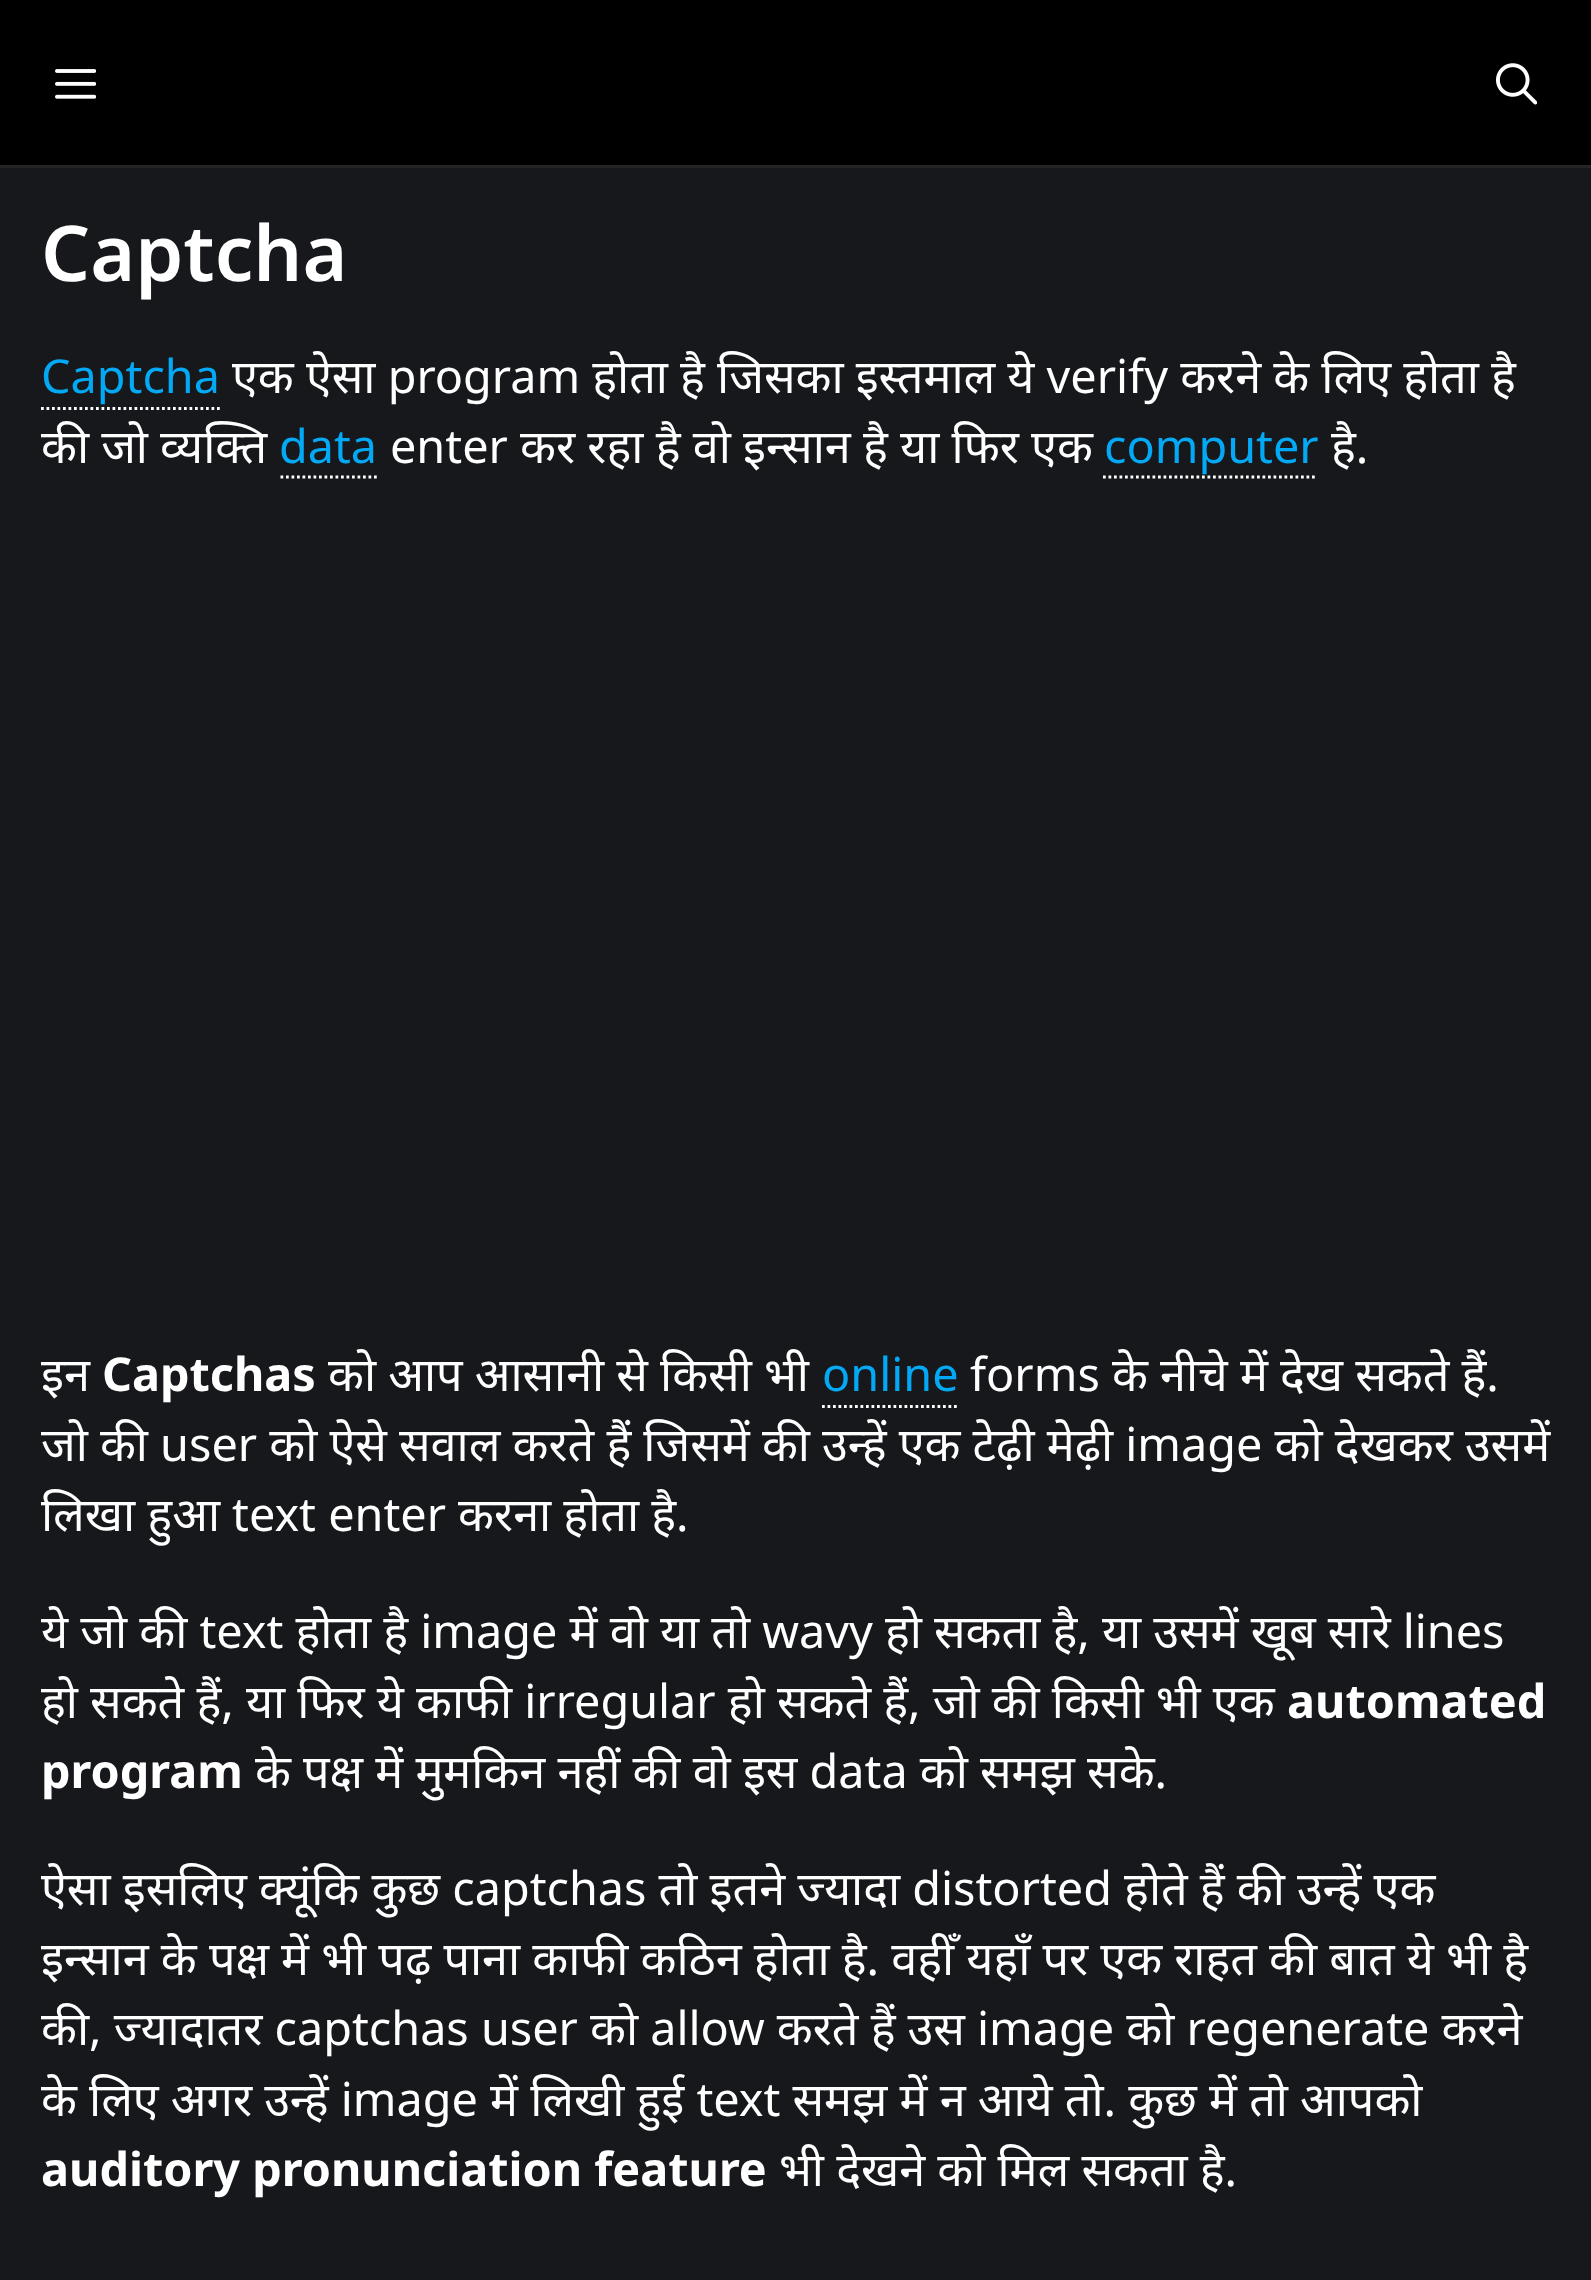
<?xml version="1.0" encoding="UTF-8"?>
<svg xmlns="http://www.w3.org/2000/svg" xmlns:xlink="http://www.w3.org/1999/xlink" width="1591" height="2280">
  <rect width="100%" height="100%" fill="#17181c" />
  <rect width="1591" height="165" fill="#000000" />
  <rect y="165" width="1591" height="3" fill="#242424" />
  <image x="55" y="69" width="41" height="30" xlink:href="image1.png" />
  <image x="1496" y="63" width="41" height="42" xlink:href="image2.png" />
  <path d="M 41 408.5 h 179" fill="none" stroke="#ffffff" stroke-width="2.8" stroke-dasharray="2.75 2.75" />
  <path d="M 280.5 477 h 96.5" fill="none" stroke="#ffffff" stroke-width="2.8" stroke-dasharray="2.75 2.75" />
  <path d="M 1103 477 h 214" fill="none" stroke="#ffffff" stroke-width="2.8" stroke-dasharray="2.75 2.75" />
  <path d="M 822 1406.5 h 135" fill="none" stroke="#ffffff" stroke-width="2.8" stroke-dasharray="2.75 2.75" />
  <text x="41" y="281" style="font-family: Noto Sans; font-size: 77px; font-weight: 600; fill: #ffffff">Captcha</text>
  <text x="41" y="393" style="font-family: Noto Sans; font-size: 46.75px; fill: #03a9f4">Captcha</text>
  <text x="232" y="393" style="font-family: Noto Sans; font-size: 46.75px; fill: #ffffff">एक ऐसा program होता है जिसका इस्तमाल ये verify करने के लिए होता है</text>
  <text x="41" y="463" style="font-family: Noto Sans; font-size: 46.75px; fill: #ffffff">की जो व्यक्ति</text>
  <text x="279" y="463" style="font-family: Noto Sans; font-size: 46.75px; fill: #03a9f4">data</text>
  <text x="390" y="463" word-spacing="0.1" style="font-family: Noto Sans; font-size: 46.75px; fill: #ffffff">enter कर रहा है वो इन्सान है या फिर एक</text>
  <text x="1104" y="463" style="font-family: Noto Sans; font-size: 46.75px; fill: #03a9f4">computer</text>
  <text x="1331" y="463" style="font-family: Noto Sans; font-size: 46.75px; fill: #ffffff">है.</text>
  <text x="41" y="1391" style="font-family: Noto Sans; font-size: 46.75px; fill: #ffffff">इन</text>
  <text x="102" y="1391" style="font-family: Noto Sans; font-size: 46.75px; font-weight: bold; fill: #ffffff">Captchas</text>
  <text x="328" y="1391" style="font-family: Noto Sans; font-size: 46.75px; fill: #ffffff">को आप आसानी से किसी भी</text>
  <text x="822" y="1391" style="font-family: Noto Sans; font-size: 46.75px; fill: #03a9f4">online</text>
  <text x="970" y="1391" style="font-family: Noto Sans; font-size: 46.75px; fill: #ffffff">forms के नीचे में देख सकते हैं.</text>
  <text x="41" y="1461" style="font-family: Noto Sans; font-size: 46.75px; fill: #ffffff">जो की user को ऐसे सवाल करते हैं जिसमें की उन्हें एक टेढ़ी मेढ़ी image को देखकर उसमें</text>
  <text x="41" y="1531" style="font-family: Noto Sans; font-size: 46.75px; fill: #ffffff">लिखा हुआ text enter करना होता है.</text>
  <text x="41" y="1648" style="font-family: Noto Sans; font-size: 46.75px; fill: #ffffff">ये जो की text होता है image में वो या तो wavy हो सकता है, या उसमें खूब सारे lines</text>
  <text x="41" y="1718" style="font-family: Noto Sans; font-size: 46.75px; fill: #ffffff">हो सकते हैं, या फिर ये काफी irregular हो सकते हैं, जो की किसी भी एक</text>
  <text x="1287" y="1718" style="font-family: Noto Sans; font-size: 46.75px; font-weight: bold; fill: #ffffff">automated</text>
  <text x="41" y="1788" style="font-family: Noto Sans; font-size: 46.75px; font-weight: bold; fill: #ffffff">program</text>
  <text x="255" y="1788" style="font-family: Noto Sans; font-size: 46.75px; fill: #ffffff">के पक्ष में मुमकिन नहीं की वो इस data को समझ सके.</text>
  <text x="41" y="1905" style="font-family: Noto Sans; font-size: 46.75px; fill: #ffffff">ऐसा इसलिए क्यूंकि कुछ captchas तो इतने ज्यादा distorted होते हैं की उन्हें एक</text>
  <text x="41" y="1975" style="font-family: Noto Sans; font-size: 46.75px; fill: #ffffff">इन्सान के पक्ष में भी पढ़ पाना काफी कठिन होता है. वहीँ यहाँ पर एक राहत की बात ये भी है</text>
  <text x="41" y="2045" style="font-family: Noto Sans; font-size: 46.75px; fill: #ffffff">की, ज्यादातर captchas user को allow करते हैं उस image को regenerate करने</text>
  <text x="41" y="2116" style="font-family: Noto Sans; font-size: 46.75px; fill: #ffffff">के लिए अगर उन्हें image में लिखी हुई text समझ में न आये तो. कुछ में तो आपको</text>
  <text x="41" y="2186" style="font-family: Noto Sans; font-size: 46.75px; font-weight: bold; fill: #ffffff">auditory pronunciation feature</text>
  <text x="779" y="2186" style="font-family: Noto Sans; font-size: 46.75px; fill: #ffffff">भी देखने को मिल सकता है.</text>
</svg>
